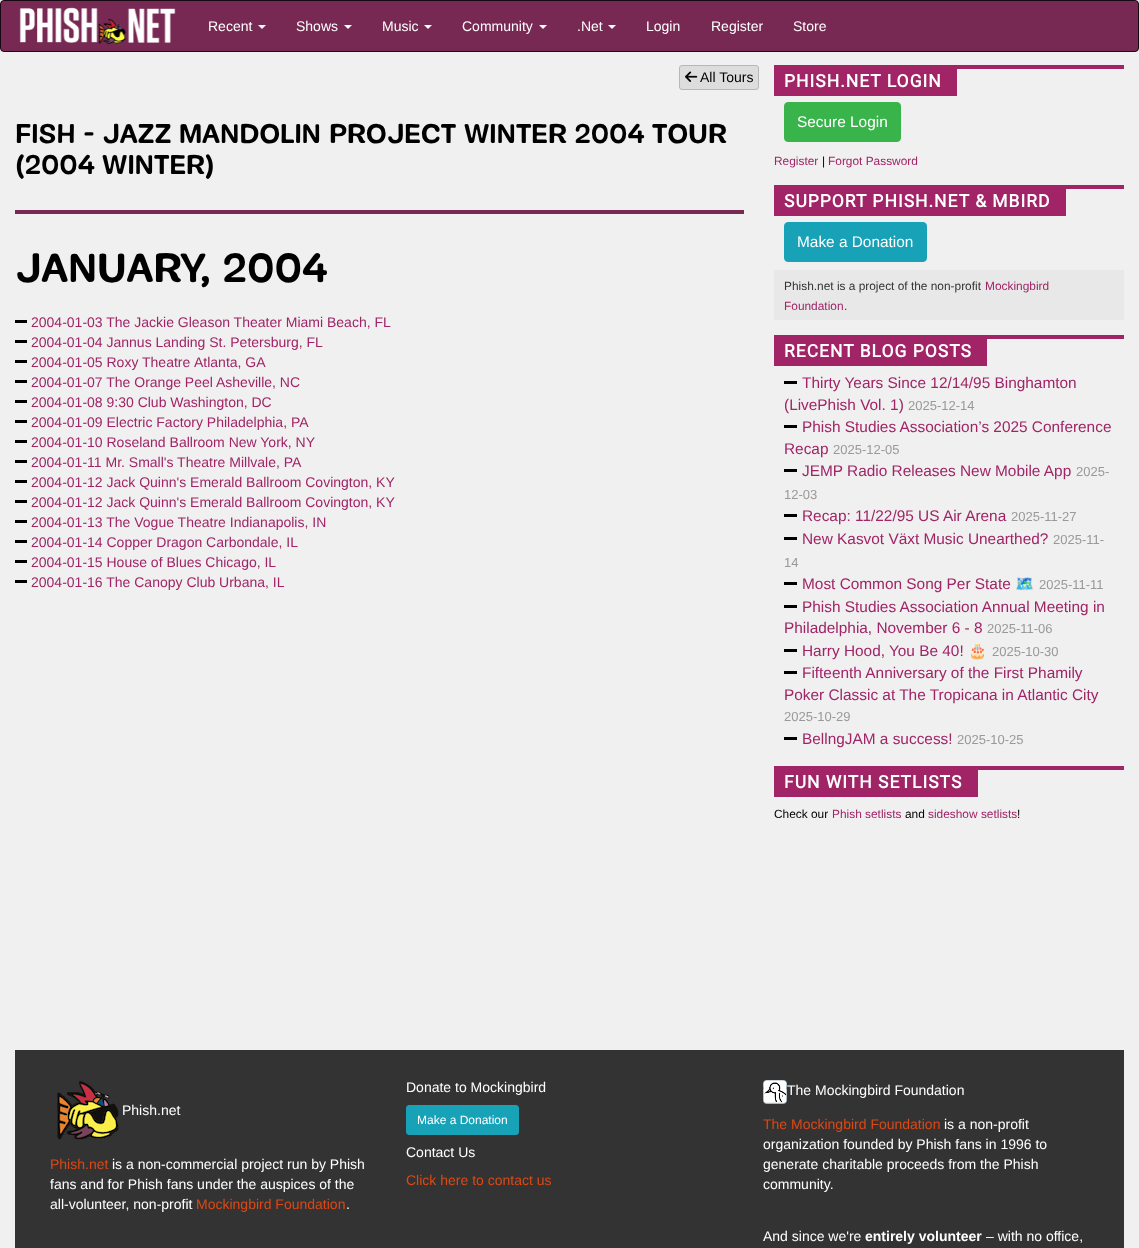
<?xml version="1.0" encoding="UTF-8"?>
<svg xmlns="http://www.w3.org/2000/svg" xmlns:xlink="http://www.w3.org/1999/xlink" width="1139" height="1248">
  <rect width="100%" height="100%" fill="#f0f0f0" />
  <rect x="0.5" y="0.5" width="1138" height="51" rx="3.5" fill="#772953" stroke="#180811" />
  <image x="19" y="7" width="157" height="38" xlink:href="image1.png" />
  <path d="M 258 25 h 8 l -4 4 z" fill="#ffffff" />
  <path d="M 344 25 h 8 l -4 4 z" fill="#ffffff" />
  <path d="M 424 25 h 8 l -4 4 z" fill="#ffffff" />
  <path d="M 539 25 h 8 l -4 4 z" fill="#ffffff" />
  <path d="M 608 25 h 8 l -4 4 z" fill="#ffffff" />
  <rect x="679.5" y="65.5" width="79" height="24" rx="2.5" fill="#dddddd" stroke="#b7b7b7" />
  <image x="685" y="71" width="13" height="11" xlink:href="image2.png" />
  <rect x="15" y="210" width="729" height="4" fill="#772953" />
  <rect x="15" y="320" width="12" height="3" fill="#000000" />
  <rect x="15" y="340" width="12" height="3" fill="#000000" />
  <rect x="15" y="360" width="12" height="3" fill="#000000" />
  <rect x="15" y="380" width="12" height="3" fill="#000000" />
  <rect x="15" y="400" width="12" height="3" fill="#000000" />
  <rect x="15" y="420" width="12" height="3" fill="#000000" />
  <rect x="15" y="440" width="12" height="3" fill="#000000" />
  <rect x="15" y="460" width="12" height="3" fill="#000000" />
  <rect x="15" y="480" width="12" height="3" fill="#000000" />
  <rect x="15" y="500" width="12" height="3" fill="#000000" />
  <rect x="15" y="520" width="12" height="3" fill="#000000" />
  <rect x="15" y="540" width="12" height="3" fill="#000000" />
  <rect x="15" y="560" width="12" height="3" fill="#000000" />
  <rect x="15" y="580" width="12" height="3" fill="#000000" />
  <rect x="774" y="65" width="350" height="4" fill="#a02466" />
  <rect x="774" y="69" width="183" height="27" fill="#a02466" />
  <rect x="784.5" y="102.5" width="116" height="39" rx="3.5" fill="#38b44a" stroke="#38b44a" />
  <rect x="774" y="185" width="350" height="4" fill="#a02466" />
  <rect x="774" y="189" width="292" height="27" fill="#a02466" />
  <rect x="784.5" y="222.5" width="142" height="39" rx="3.5" fill="#17a2b8" stroke="#17a2b8" />
  <rect x="774" y="270" width="350" height="50" fill="#e8e8e8" />
  <rect x="774" y="335" width="350" height="4" fill="#a02466" />
  <rect x="774" y="339" width="213" height="27" fill="#a02466" />
  <rect x="784" y="381" width="13" height="3" fill="#000000" />
  <rect x="784" y="425" width="13" height="3" fill="#000000" />
  <rect x="784" y="469" width="13" height="3" fill="#000000" />
  <rect x="784" y="514" width="13" height="3" fill="#000000" />
  <rect x="784" y="537" width="13" height="3" fill="#000000" />
  <rect x="784" y="582" width="13" height="3" fill="#000000" />
  <rect x="784" y="605" width="13" height="3" fill="#000000" />
  <rect x="784" y="649" width="13" height="3" fill="#000000" />
  <rect x="784" y="671" width="13" height="3" fill="#000000" />
  <rect x="784" y="737" width="13" height="3" fill="#000000" />
  <rect x="774" y="766" width="350" height="4" fill="#a02466" />
  <rect x="774" y="770" width="204" height="27" fill="#a02466" />
  <rect x="15" y="1050" width="1109" height="198" fill="#333333" />
  <image x="57" y="1081" width="62" height="59" xlink:href="image3.png" />
  <rect x="406.5" y="1105.5" width="112" height="29" rx="2.5" fill="#17a2b8" stroke="#17a2b8" />
  <image x="763" y="1080" width="24" height="24" xlink:href="image4.png" />
  <text x="208" y="31" style="font-family: Liberation Sans; font-size: 14px; fill: #ffffff">Recent</text>
  <text x="296" y="31" style="font-family: Liberation Sans; font-size: 14px; fill: #ffffff">Shows</text>
  <text x="382" y="31" style="font-family: Liberation Sans; font-size: 14px; fill: #ffffff">Music</text>
  <text x="462" y="31" style="font-family: Liberation Sans; font-size: 14px; fill: #ffffff">Community</text>
  <text x="577" y="31" style="font-family: Liberation Sans; font-size: 14px; fill: #ffffff">.Net</text>
  <text x="646" y="31" style="font-family: Liberation Sans; font-size: 14px; fill: #ffffff">Login</text>
  <text x="711" y="31" style="font-family: Liberation Sans; font-size: 14px; fill: #ffffff">Register</text>
  <text x="793" y="31" style="font-family: Liberation Sans; font-size: 14px; fill: #ffffff">Store</text>
  <text x="700" y="82" style="font-family: Liberation Sans; font-size: 14px; fill: #000000">All Tours</text>
  <text x="15" y="143" style="font-family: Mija; font-size: 28px; font-weight: bold; fill: #000000">FISH - JAZZ MANDOLIN PROJECT WINTER 2004 TOUR</text>
  <text x="15" y="174" style="font-family: Mija; font-size: 28px; font-weight: bold; fill: #000000">(2004 WINTER)</text>
  <text x="15" y="282" style="font-family: Mija; font-size: 42px; font-weight: bold; fill: #000000">JANUARY, 2004</text>
  <text x="31" y="327" style="font-family: Liberation Sans; font-size: 14px; fill: #a02466">2004-01-03 The Jackie Gleason Theater Miami Beach, FL</text>
  <text x="31" y="347" style="font-family: Liberation Sans; font-size: 14px; fill: #a02466">2004-01-04 Jannus Landing St. Petersburg, FL</text>
  <text x="31" y="367" style="font-family: Liberation Sans; font-size: 14px; fill: #a02466">2004-01-05 Roxy Theatre</text>
  <text x="194" y="367" style="font-family: Liberation Sans; font-size: 14px; fill: #a02466">Atlanta, GA</text>
  <text x="31" y="387" style="font-family: Liberation Sans; font-size: 14px; fill: #a02466">2004-01-07 The Orange Peel</text>
  <text x="216" y="387" style="font-family: Liberation Sans; font-size: 14px; fill: #a02466">Asheville, NC</text>
  <text x="31" y="407" style="font-family: Liberation Sans; font-size: 14px; fill: #a02466">2004-01-08 9:30 Club Washington, DC</text>
  <text x="31" y="427" style="font-family: Liberation Sans; font-size: 14px; fill: #a02466">2004-01-09 Electric Factory Philadelphia, PA</text>
  <text x="31" y="447" style="font-family: Liberation Sans; font-size: 14px; fill: #a02466">2004-01-10 Roseland Ballroom New York, NY</text>
  <text x="31" y="467" style="font-family: Liberation Sans; font-size: 14px; fill: #a02466">2004-01-11 Mr. Small's Theatre Millvale, PA</text>
  <text x="31" y="487" style="font-family: Liberation Sans; font-size: 14px; fill: #a02466">2004-01-12 Jack Quinn's Emerald Ballroom Covington, KY</text>
  <text x="31" y="507" style="font-family: Liberation Sans; font-size: 14px; fill: #a02466">2004-01-12 Jack Quinn's Emerald Ballroom Covington, KY</text>
  <text x="31" y="527" style="font-family: Liberation Sans; font-size: 14px; fill: #a02466">2004-01-13 The Vogue Theatre Indianapolis, IN</text>
  <text x="31" y="547" style="font-family: Liberation Sans; font-size: 14px; fill: #a02466">2004-01-14 Copper Dragon Carbondale, IL</text>
  <text x="31" y="567" style="font-family: Liberation Sans; font-size: 14px; fill: #a02466">2004-01-15 House of Blues Chicago, IL</text>
  <text x="31" y="587" style="font-family: Liberation Sans; font-size: 14px; fill: #a02466">2004-01-16 The Canopy Club Urbana, IL</text>
  <text x="784" y="87" style="font-family: Roboto; font-size: 17.5px; font-weight: bold; letter-spacing: 1px; fill: #ffffff">PHISH.NET LOGIN</text>
  <text x="797" y="127" style="font-family: Liberation Sans; font-size: 15.4px; fill: #ffffff">Secure Login</text>
  <text x="774" y="165" style="font-family: Liberation Sans; font-size: 11.9px; fill: #a02466">Register</text>
  <text x="822" y="165" style="font-family: Liberation Sans; font-size: 11.9px; fill: #000000">|</text>
  <text x="828" y="165" style="font-family: Liberation Sans; font-size: 11.9px; fill: #a02466">Forgot Password</text>
  <text x="784" y="207" style="font-family: Roboto; font-size: 17.5px; font-weight: bold; letter-spacing: 1px; fill: #ffffff">SUPPORT PHISH.NET &amp; MBIRD</text>
  <text x="797" y="247" style="font-family: Liberation Sans; font-size: 15.4px; fill: #ffffff">Make a Donation</text>
  <text x="784" y="290" style="font-family: Liberation Sans; font-size: 11.9px; fill: #333333">Phish.net is a project of the non-profit</text>
  <text x="985" y="290" style="font-family: Liberation Sans; font-size: 11.9px; fill: #a02466">Mockingbird</text>
  <text x="784" y="310" style="font-family: Liberation Sans; font-size: 11.9px; fill: #a02466">Foundation</text>
  <text x="844" y="310" style="font-family: Liberation Sans; font-size: 11.9px; fill: #333333">.</text>
  <text x="784" y="357" style="font-family: Roboto; font-size: 17.5px; font-weight: bold; letter-spacing: 1px; fill: #ffffff">RECENT BLOG POSTS</text>
  <text x="802" y="388" style="font-family: Liberation Sans; font-size: 15.4px; fill: #a02466">Thirty Years Since 12/14/95 Binghamton</text>
  <text x="784" y="410" style="font-family: Liberation Sans; font-size: 15.4px; fill: #a02466">(LivePhish Vol. 1)</text>
  <text x="908" y="410" style="font-family: Liberation Sans; font-size: 13px; fill: #999999">2025-12-14</text>
  <text x="802" y="432" style="font-family: Liberation Sans; font-size: 15.4px; fill: #a02466">Phish Studies Association’s 2025 Conference</text>
  <text x="784" y="454" style="font-family: Liberation Sans; font-size: 15.4px; fill: #a02466">Recap</text>
  <text x="833" y="454" style="font-family: Liberation Sans; font-size: 13px; fill: #999999">2025-12-05</text>
  <text x="802" y="476" style="font-family: Liberation Sans; font-size: 15.4px; fill: #a02466">JEMP Radio Releases New Mobile App</text>
  <text x="1076" y="476" style="font-family: Liberation Sans; font-size: 13px; fill: #999999">2025-</text>
  <text x="784" y="499" style="font-family: Liberation Sans; font-size: 13px; fill: #999999">12-03</text>
  <text x="802" y="521" style="font-family: Liberation Sans; font-size: 15.4px; fill: #a02466">Recap: 11/22/95 US Air Arena</text>
  <text x="1011" y="521" style="font-family: Liberation Sans; font-size: 13px; fill: #999999">2025-11-27</text>
  <text x="802" y="544" style="font-family: Liberation Sans; font-size: 15.4px; fill: #a02466">New Kasvot Växt Music Unearthed?</text>
  <text x="1053" y="544" style="font-family: Liberation Sans; font-size: 13px; fill: #999999">2025-11-</text>
  <text x="784" y="567" style="font-family: Liberation Sans; font-size: 13px; fill: #999999">14</text>
  <text x="802" y="589" style="font-family: Liberation Sans; font-size: 15.4px; fill: #a02466">Most Common Song Per State</text>
  <text x="1015" y="589" style="font-family: Noto Color Emoji; font-size: 15.4px; fill: #a02466">🗺️</text>
  <text x="1039" y="589" style="font-family: Liberation Sans; font-size: 13px; fill: #999999">2025-11-11</text>
  <text x="802" y="612" style="font-family: Liberation Sans; font-size: 15.4px; fill: #a02466">Phish Studies Association Annual Meeting in</text>
  <text x="784" y="633" style="font-family: Liberation Sans; font-size: 15.4px; fill: #a02466">Philadelphia, November 6 - 8</text>
  <text x="987" y="633" style="font-family: Liberation Sans; font-size: 13px; fill: #999999">2025-11-06</text>
  <text x="802" y="656" style="font-family: Liberation Sans; font-size: 15.4px; fill: #a02466">Harry Hood, You Be 40!</text>
  <text x="968" y="656" style="font-family: Noto Color Emoji; font-size: 15.4px; fill: #a02466">🎂</text>
  <text x="992" y="656" style="font-family: Liberation Sans; font-size: 13px; fill: #999999">2025-10-30</text>
  <text x="802" y="678" style="font-family: Liberation Sans; font-size: 15.4px; fill: #a02466">Fifteenth Anniversary of the First Phamily</text>
  <text x="784" y="700" style="font-family: Liberation Sans; font-size: 15.4px; fill: #a02466">Poker Classic at The Tropicana in Atlantic City</text>
  <text x="784" y="721" style="font-family: Liberation Sans; font-size: 13px; fill: #999999">2025-10-29</text>
  <text x="802" y="744" style="font-family: Liberation Sans; font-size: 15.4px; fill: #a02466">BellngJAM a success!</text>
  <text x="957" y="744" style="font-family: Liberation Sans; font-size: 13px; fill: #999999">2025-10-25</text>
  <text x="784" y="788" style="font-family: Roboto; font-size: 17.5px; font-weight: bold; letter-spacing: 1px; fill: #ffffff">FUN WITH SETLISTS</text>
  <text x="774" y="818" style="font-family: Liberation Sans; font-size: 11.9px; fill: #000000">Check our</text>
  <text x="832" y="818" style="font-family: Liberation Sans; font-size: 11.9px; fill: #a02466">Phish setlists</text>
  <text x="905" y="818" style="font-family: Liberation Sans; font-size: 11.9px; fill: #000000">and</text>
  <text x="928" y="818" style="font-family: Liberation Sans; font-size: 11.9px; fill: #a02466">sideshow setlists</text>
  <text x="1017" y="818" style="font-family: Liberation Sans; font-size: 11.9px; fill: #000000">!</text>
  <text x="122" y="1115" style="font-family: Liberation Sans; font-size: 14px; fill: #ffffff">Phish.net</text>
  <text x="50" y="1169" style="font-family: Liberation Sans; font-size: 14px; fill: #dd4814">Phish.net</text>
  <text x="112" y="1169" style="font-family: Liberation Sans; font-size: 14px; fill: #ffffff">is a non-commercial project run by Phish</text>
  <text x="50" y="1189" style="font-family: Liberation Sans; font-size: 14px; fill: #ffffff">fans and for Phish fans under the auspices of the</text>
  <text x="50" y="1209" style="font-family: Liberation Sans; font-size: 14px; fill: #ffffff">all-volunteer, non-profit</text>
  <text x="196" y="1209" style="font-family: Liberation Sans; font-size: 14px; fill: #dd4814">Mockingbird Foundation</text>
  <text x="346" y="1209" style="font-family: Liberation Sans; font-size: 14px; fill: #ffffff">.</text>
  <text x="406" y="1092" style="font-family: Liberation Sans; font-size: 14px; fill: #ffffff">Donate to Mockingbird</text>
  <text x="417" y="1124" style="font-family: Liberation Sans; font-size: 12px; fill: #ffffff">Make a Donation</text>
  <text x="406" y="1157" style="font-family: Liberation Sans; font-size: 14px; fill: #ffffff">Contact Us</text>
  <text x="406" y="1185" style="font-family: Liberation Sans; font-size: 14px; fill: #dd4814">Click here to contact us</text>
  <text x="787" y="1095" style="font-family: Liberation Sans; font-size: 14px; fill: #ffffff">The Mockingbird Foundation</text>
  <text x="763" y="1129" style="font-family: Liberation Sans; font-size: 14px; fill: #dd4814">The Mockingbird Foundation</text>
  <text x="944" y="1129" style="font-family: Liberation Sans; font-size: 14px; fill: #ffffff">is a non-profit</text>
  <text x="763" y="1149" style="font-family: Liberation Sans; font-size: 14px; fill: #ffffff">organization founded by Phish fans in 1996 to</text>
  <text x="763" y="1169" style="font-family: Liberation Sans; font-size: 14px; fill: #ffffff">generate charitable proceeds from the Phish</text>
  <text x="763" y="1189" style="font-family: Liberation Sans; font-size: 14px; fill: #ffffff">community.</text>
  <text x="763" y="1241" style="font-family: Liberation Sans; font-size: 14px; fill: #ffffff">And since we're</text>
  <text x="865" y="1241" style="font-family: Liberation Sans; font-size: 14px; font-weight: bold; fill: #ffffff">entirely volunteer</text>
  <text x="986" y="1241" style="font-family: Liberation Sans; font-size: 14px; fill: #ffffff">– with no office,</text>
</svg>
